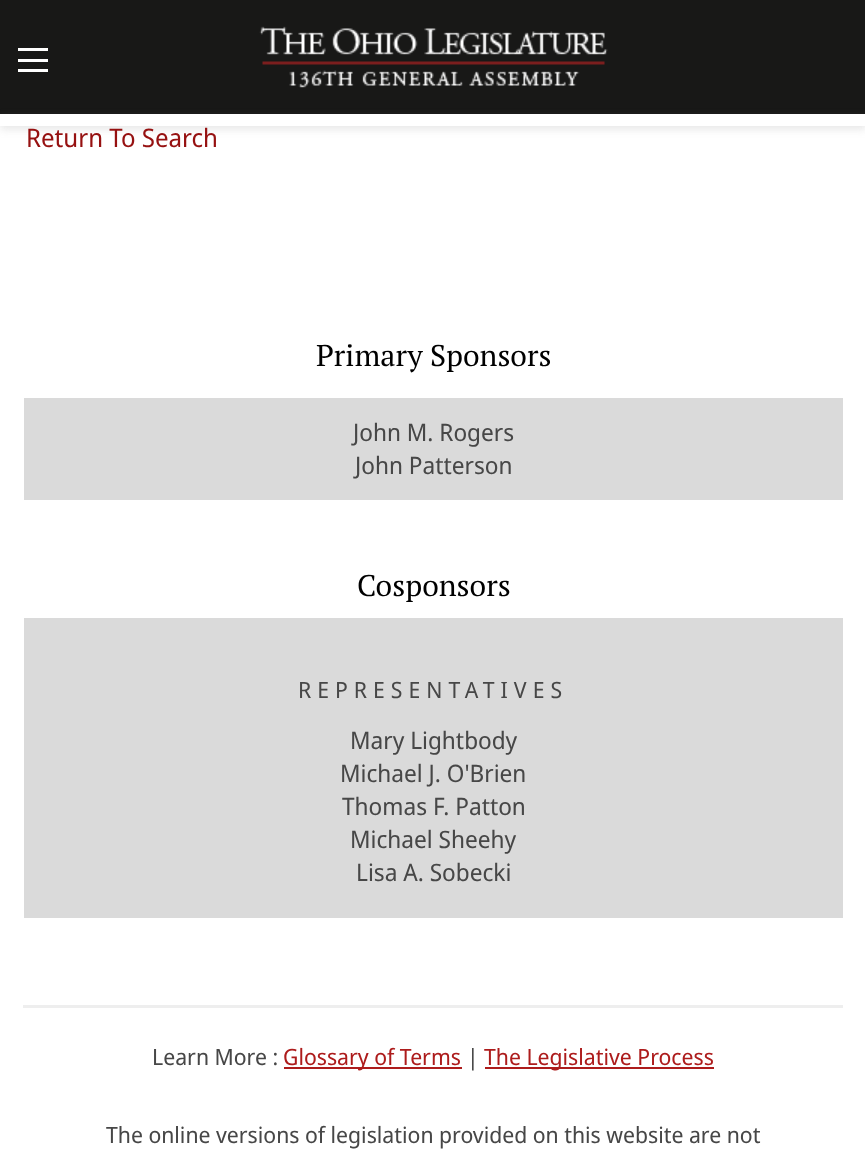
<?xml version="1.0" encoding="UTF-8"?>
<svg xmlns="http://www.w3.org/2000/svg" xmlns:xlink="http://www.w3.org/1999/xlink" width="865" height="1159">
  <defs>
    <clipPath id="clip1"><path d="M 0 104 h 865 v 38 h -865 z m 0 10 h 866 v 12 h -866 z" clip-rule="evenodd" /></clipPath>
  </defs>
  <rect width="100%" height="100%" fill="#ffffff" />
  <rect width="865" height="114" fill="#181817" />
  <image x="259" y="26" width="349" height="62" xlink:href="image1.png" />
  <g clip-path="url(#clip1)">
    <rect y="117" width="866" height="12" fill="#7d7d7d" fill-opacity="0.2" filter="blur(4px)" />
  </g>
  <rect x="18" y="48" width="30" height="3" fill="#ffffff" />
  <rect x="18" y="59" width="30" height="3" fill="#ffffff" />
  <rect x="18" y="69" width="30" height="3" fill="#ffffff" />
  <rect x="24" y="398" width="819" height="102" fill="#dadada" />
  <rect x="24" y="618" width="819" height="300" fill="#dadada" />
  <rect x="23" y="1005" width="820" height="3" fill="#eeeeee" />
  <rect x="284" y="1067" width="178" height="2" fill="#ad1c1c" />
  <rect x="485" y="1067" width="229" height="2" fill="#ad1c1c" />
  <text x="26" y="147" style="font-family: Noto Sans Display; font-size: 25.5px; fill: #961111">Return To Search</text>
  <text x="316" y="366" style="font-family: PT Serif; font-size: 30px; fill: #000000">Primary Sponsors</text>
  <text x="353" y="441" style="font-family: Noto Sans Display; font-size: 24px; fill: #474747">John M. Rogers</text>
  <text x="355" y="474" style="font-family: Noto Sans Display; font-size: 24px; fill: #474747">John Patterson</text>
  <text x="357" y="596" style="font-family: PT Serif; font-size: 30px; fill: #000000">Cosponsors</text>
  <text x="298" y="698" style="font-family: Noto Sans Display; font-size: 22.5px; letter-spacing: 6px; fill: #474747">REPRESENTATIVES</text>
  <text x="350" y="749" style="font-family: Noto Sans Display; font-size: 24px; fill: #474747">Mary Lightbody</text>
  <text x="340" y="782" style="font-family: Noto Sans Display; font-size: 24px; fill: #474747">Michael J. O'Brien</text>
  <text x="342" y="815" style="font-family: Noto Sans Display; font-size: 24px; fill: #474747">Thomas F. Patton</text>
  <text x="350" y="848" style="font-family: Noto Sans Display; font-size: 24px; fill: #474747">Michael Sheehy</text>
  <text x="356" y="881" style="font-family: Noto Sans Display; font-size: 24px; fill: #474747">Lisa A. Sobecki</text>
  <text x="152" y="1065" style="font-family: Noto Sans Display; font-size: 22.5px; fill: #474747">Learn More :</text>
  <text x="283" y="1065" style="font-family: Noto Sans Display; font-size: 22.5px; fill: #ad1c1c">Glossary of Terms</text>
  <text x="467" y="1065" style="font-family: Noto Sans Display; font-size: 22.5px; fill: #474747">|</text>
  <text x="484" y="1065" style="font-family: Noto Sans Display; font-size: 22.5px; fill: #ad1c1c">The Legislative Process</text>
  <text x="106" y="1143" style="font-family: Noto Sans Display; font-size: 22.5px; fill: #474747">The online versions of legislation provided on this website are not</text>
</svg>
